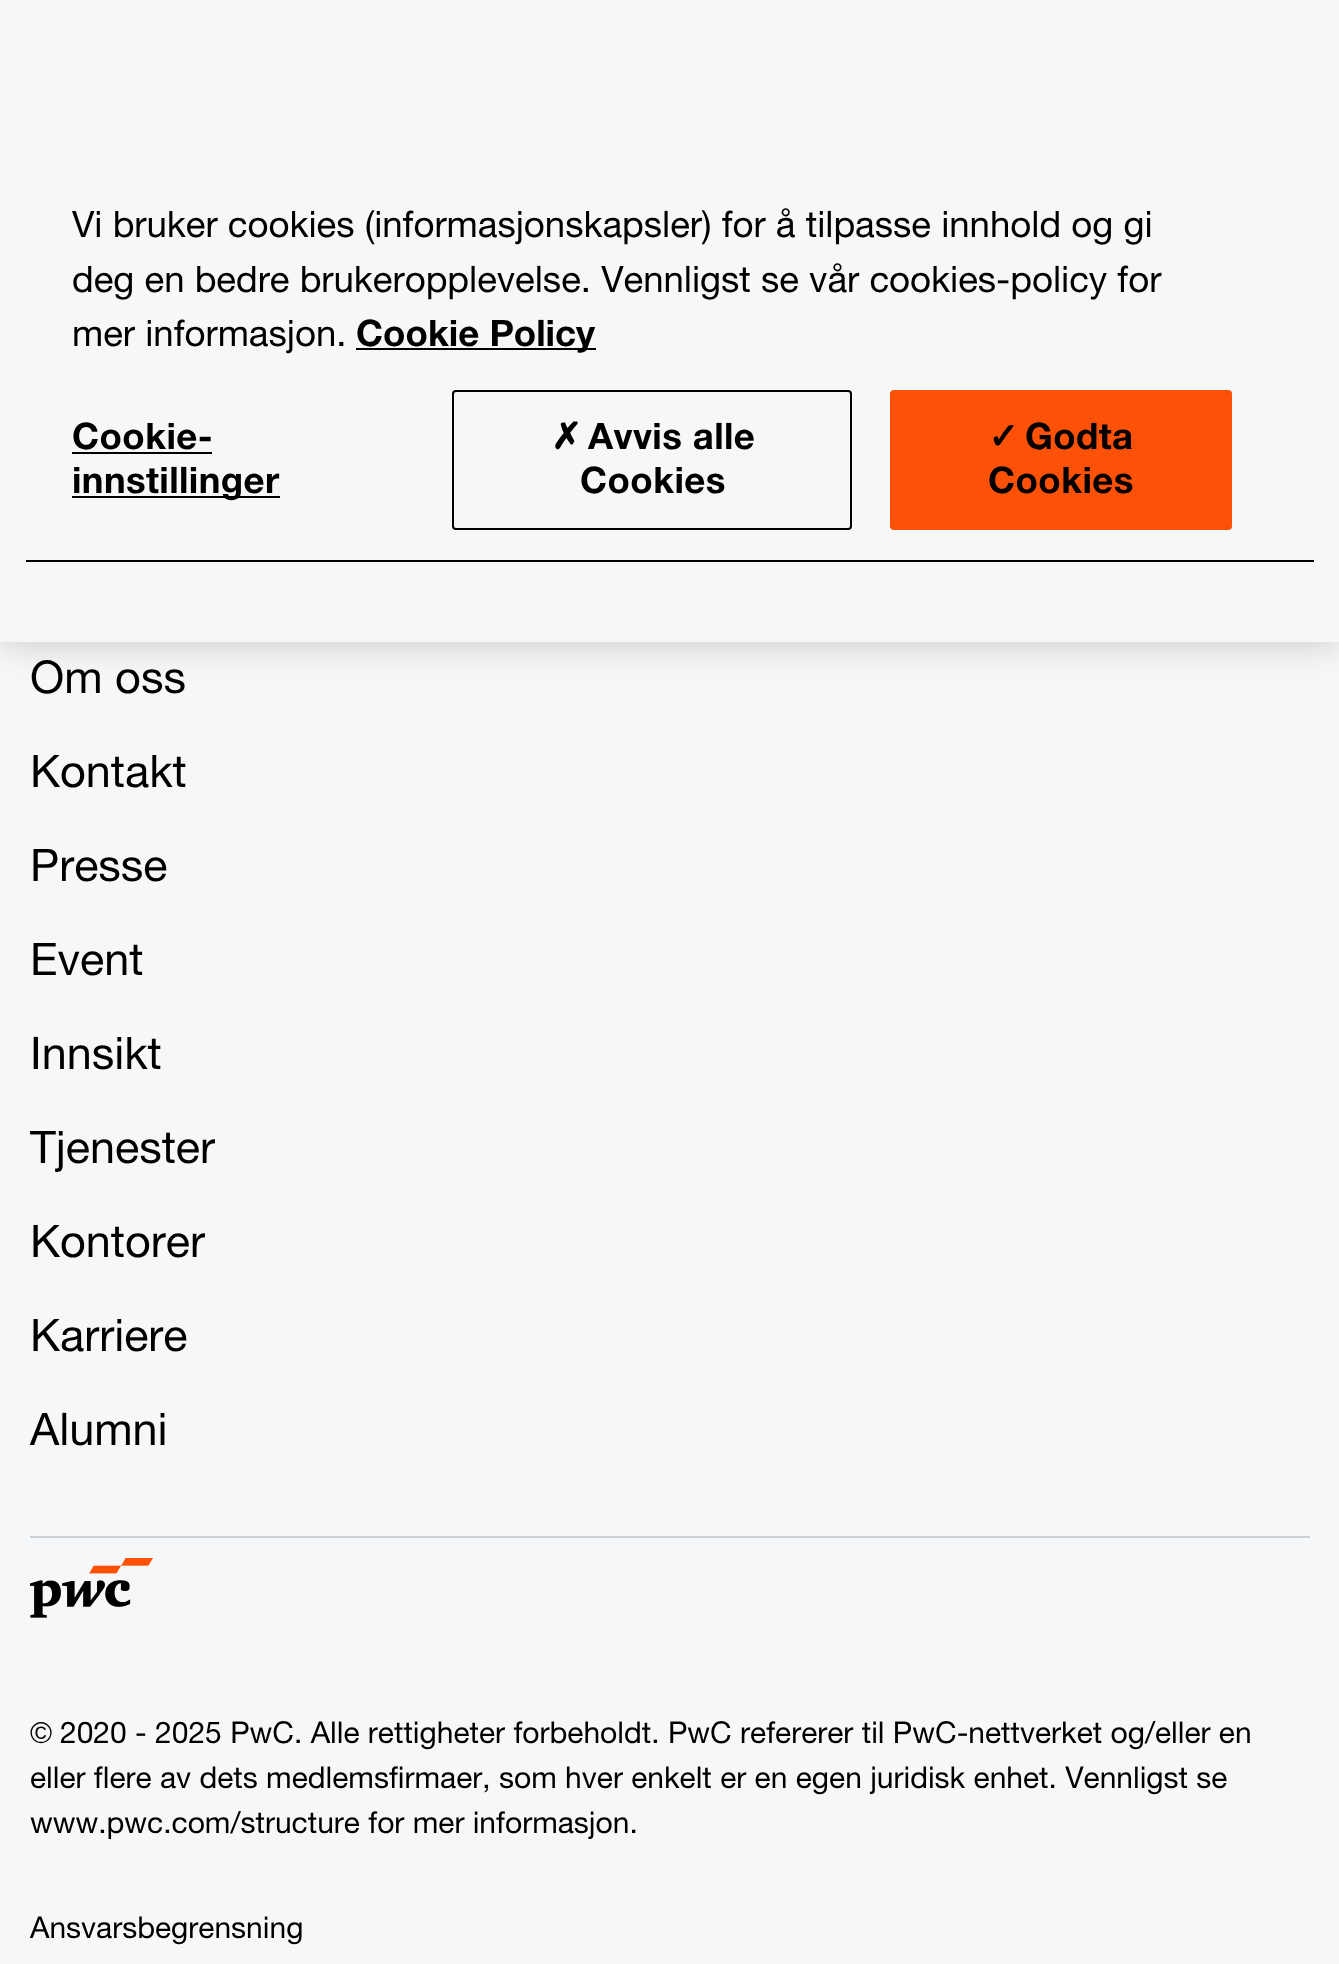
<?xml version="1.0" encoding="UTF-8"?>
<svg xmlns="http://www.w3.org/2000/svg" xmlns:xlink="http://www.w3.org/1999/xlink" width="1339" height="1964">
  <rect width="100%" height="100%" fill="#f5f7f8" />
  <rect width="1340" height="642" fill="#000000" fill-opacity="0.2" filter="blur(18px)" />
  <rect width="1339" height="642" fill="#f5f7f8" />
  <rect x="26" y="560" width="1288" height="2" fill="#000000" />
  <rect x="356" y="348" width="240" height="2" fill="#000000" />
  <rect x="72" y="452" width="140" height="2" fill="#000000" />
  <rect x="72" y="496" width="208" height="2" fill="#000000" />
  <rect x="453" y="391" width="398" height="138" rx="3" fill="none" stroke="#000000" stroke-width="2" />
  <rect x="891" y="391" width="340" height="138" rx="3" fill="#fd5108" stroke="#fd5108" stroke-width="2" />
  <rect x="30" y="1536" width="1280" height="2" fill="#cbd1d6" />
  <image x="30" y="1558" width="123" height="60" xlink:href="image1.png" />
  <text x="72" y="237" style="font-family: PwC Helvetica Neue; font-size: 36.6px; fill: #000000">Vi bruker cookies (informasjonskapsler) for å tilpasse innhold og gi</text>
  <text x="72" y="292" style="font-family: PwC Helvetica Neue; font-size: 36.6px; fill: #000000">deg en bedre brukeropplevelse. Vennligst se vår cookies-policy for</text>
  <text x="72" y="346" style="font-family: PwC Helvetica Neue; font-size: 36.6px; fill: #000000">mer informasjon.</text>
  <text x="356" y="346" style="font-family: PwC Helvetica Neue; font-size: 36.6px; font-weight: bold; fill: #000000">Cookie Policy</text>
  <text x="72" y="449" style="font-family: PwC Helvetica Neue; font-size: 36.6px; font-weight: bold; letter-spacing: 0.4px; fill: #000000">Cookie-</text>
  <text x="72" y="493" style="font-family: PwC Helvetica Neue; font-size: 36.6px; font-weight: bold; letter-spacing: 0.4px; fill: #000000">innstillinger</text>
  <text x="551" y="449" style="font-family: DejaVu Sans; font-size: 36.6px; font-weight: bold; letter-spacing: 0.4px; fill: #000000">✗</text>
  <text x="588" y="449" style="font-family: PwC Helvetica Neue; font-size: 36.6px; font-weight: bold; letter-spacing: 0.4px; fill: #000000">Avvis alle</text>
  <text x="580" y="493" style="font-family: PwC Helvetica Neue; font-size: 36.6px; font-weight: bold; letter-spacing: 0.4px; fill: #000000">Cookies</text>
  <text x="988" y="449" style="font-family: DejaVu Sans; font-size: 36.6px; font-weight: bold; letter-spacing: 0.4px; fill: #000000">✓</text>
  <text x="1025" y="449" style="font-family: PwC Helvetica Neue; font-size: 36.6px; font-weight: bold; letter-spacing: 0.4px; fill: #000000">Godta</text>
  <text x="988" y="493" style="font-family: PwC Helvetica Neue; font-size: 36.6px; font-weight: bold; letter-spacing: 0.4px; fill: #000000">Cookies</text>
  <text x="30" y="693" style="font-family: PwC Helvetica Neue; font-size: 45px; fill: #000000">Om oss</text>
  <text x="30" y="787" style="font-family: PwC Helvetica Neue; font-size: 45px; fill: #000000">Kontakt</text>
  <text x="30" y="881" style="font-family: PwC Helvetica Neue; font-size: 45px; fill: #000000">Presse</text>
  <text x="30" y="975" style="font-family: PwC Helvetica Neue; font-size: 45px; fill: #000000">Event</text>
  <text x="30" y="1069" style="font-family: PwC Helvetica Neue; font-size: 45px; fill: #000000">Innsikt</text>
  <text x="30" y="1163" style="font-family: PwC Helvetica Neue; font-size: 45px; fill: #000000">Tjenester</text>
  <text x="30" y="1257" style="font-family: PwC Helvetica Neue; font-size: 45px; fill: #000000">Kontorer</text>
  <text x="30" y="1351" style="font-family: PwC Helvetica Neue; font-size: 45px; fill: #000000">Karriere</text>
  <text x="30" y="1445" style="font-family: PwC Helvetica Neue; font-size: 45px; fill: #000000">Alumni</text>
  <text x="30" y="1743" style="font-family: Liberation Sans; font-size: 30px; fill: #000000">©</text>
  <text x="60" y="1743" style="font-family: PwC Helvetica Neue; font-size: 30px; fill: #000000">2020 - 2025 PwC. Alle rettigheter forbeholdt. PwC refererer til PwC-nettverket og/eller en</text>
  <text x="30" y="1788" style="font-family: PwC Helvetica Neue; font-size: 30px; fill: #000000">eller flere av dets medlemsfirmaer, som hver enkelt er en egen juridisk enhet. Vennligst se</text>
  <text x="30" y="1833" style="font-family: PwC Helvetica Neue; font-size: 30px; fill: #000000">www.pwc.com/structure for mer informasjon.</text>
  <text x="30" y="1938" style="font-family: PwC Helvetica Neue; font-size: 30px; fill: #000000">Ansvarsbegrensning</text>
</svg>
